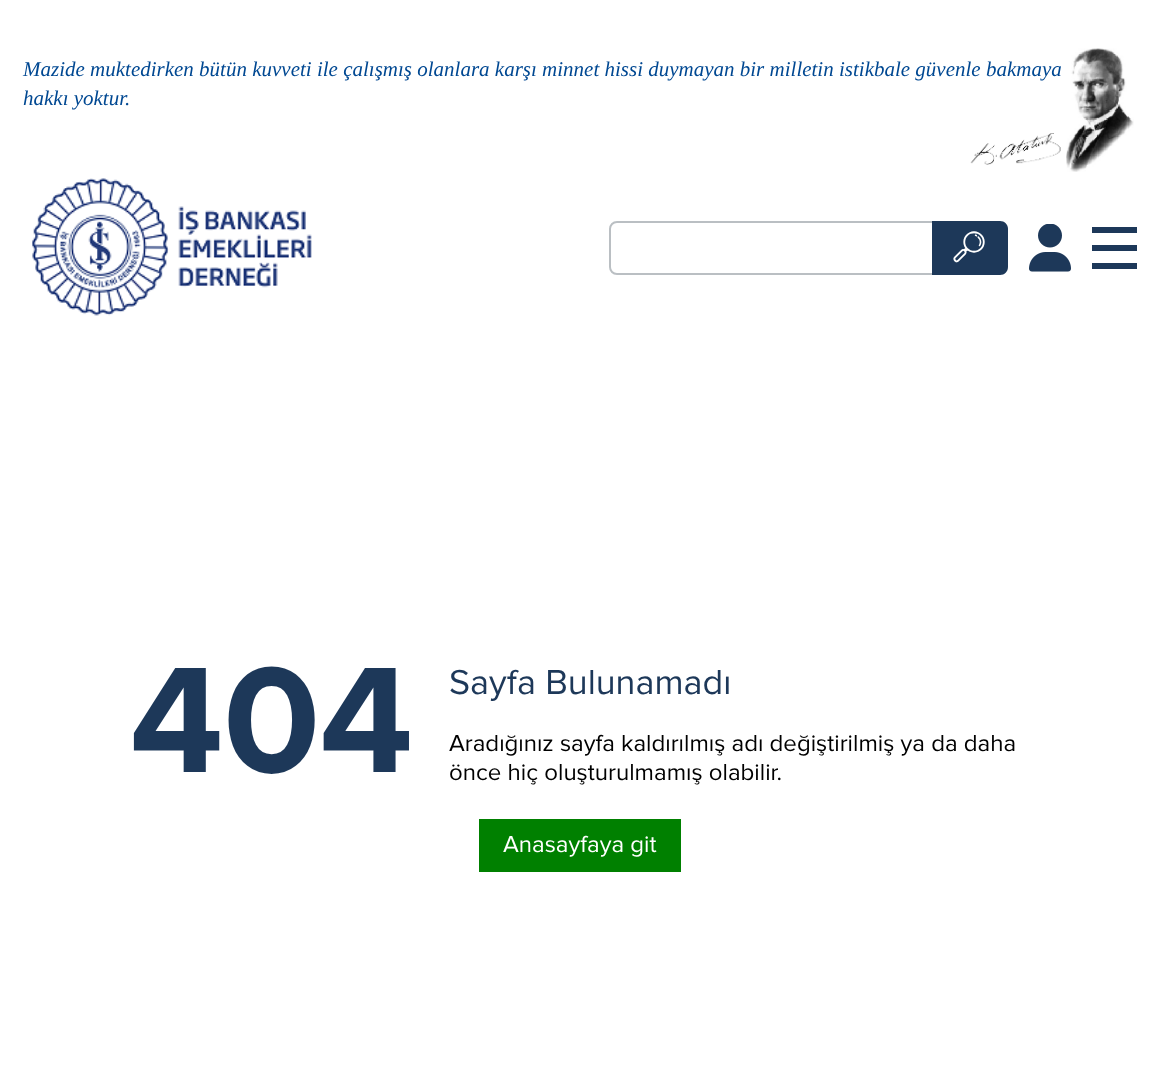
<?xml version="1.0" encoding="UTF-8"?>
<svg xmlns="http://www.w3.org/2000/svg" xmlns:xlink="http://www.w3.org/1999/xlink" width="1159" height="1065">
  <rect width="100%" height="100%" fill="#ffffff" />
  <image x="970" y="133" width="91" height="32" xlink:href="image1.png" />
  <image x="1066" y="48" width="68" height="124" xlink:href="image2.png" />
  <image x="32" y="178" width="280" height="138" xlink:href="image3.png" />
  <path d="M 617 222 h 323 v 52 h -323 c -4 0 -7 -3 -7 -7 v -38 c 0 -4 3 -7 7 -7 z" fill="none" stroke="#babfc3" stroke-width="2" />
  <path d="M 932 221 h 68 c 4.5 0 8 3.5 8 8 v 38 c 0 4.5 -3.5 8 -8 8 h -68 z" fill="#1d3859" />
  <image x="1029" y="224" width="42" height="48" xlink:href="image4.png" />
  <rect x="1092" y="227" width="45" height="6" fill="#1d3859" />
  <rect x="1092" y="245" width="45" height="6" fill="#1d3859" />
  <rect x="1092" y="263" width="45" height="6" fill="#1d3859" />
  <rect x="479" y="819" width="202" height="53" fill="#008000" />
  <text x="23" y="76" style="font-family: Liberation Serif; font-size: 21px; font-style: italic; fill: #004892">Mazide muktedirken bütün kuvveti ile çalışmış olanlara karşı minnet hissi duymayan bir milletin istikbale güvenle bakmaya</text>
  <text x="23" y="105" style="font-family: Liberation Serif; font-size: 21px; font-style: italic; fill: #004892">hakkı yoktur.</text>
  <text x="950" y="257" style="font-family: Noto Emoji; font-size: 30px; font-weight: bold; fill: #ffffff">🔎︎</text>
  <text x="130" y="772" style="font-family: Proxima Nova; font-size: 156px; font-weight: bold; fill: #1d3859">404</text>
  <text x="449" y="694" style="font-family: Proxima Nova; font-size: 36px; fill: #1d3859">Sayfa Bulunamadı</text>
  <text x="449" y="751" style="font-family: Proxima Nova; font-size: 24px; fill: #000000">Aradığınız sayfa kaldırılmış adı değiştirilmiş ya da daha</text>
  <text x="449" y="780" style="font-family: Proxima Nova; font-size: 24px; fill: #000000">önce hiç oluşturulmamış olabilir.</text>
  <text x="503" y="852" style="font-family: Proxima Nova; font-size: 24px; fill: #ffffff">Anasayfaya git</text>
</svg>
